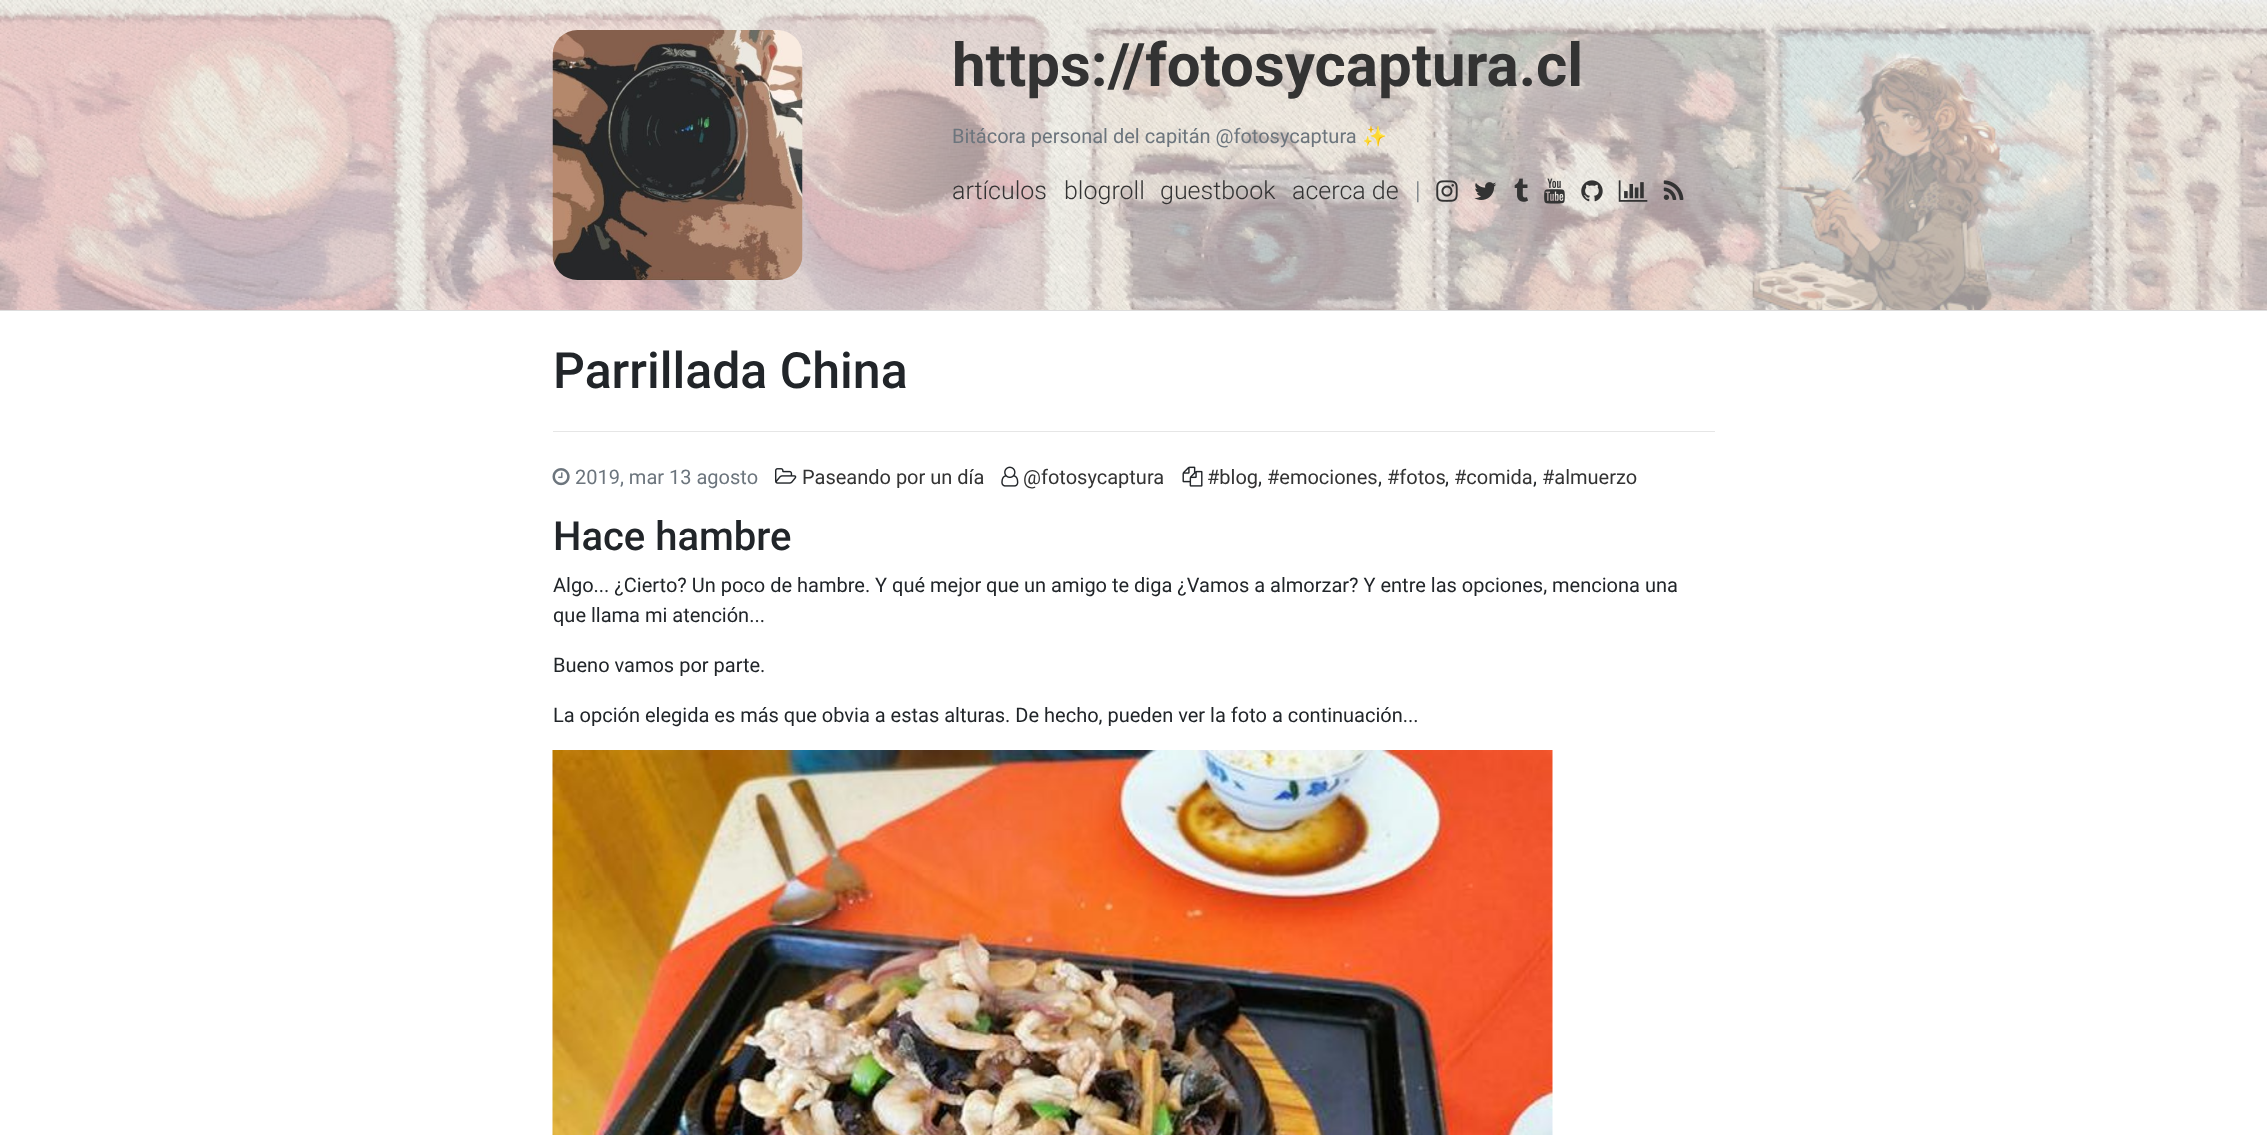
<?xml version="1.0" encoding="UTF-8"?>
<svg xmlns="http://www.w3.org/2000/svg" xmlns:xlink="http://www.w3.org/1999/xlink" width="2267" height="1135">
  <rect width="100%" height="100%" fill="#f5f5f5" />
  <rect y="310" width="2267" height="1" fill="#dddddd" />
  <image x="0" y="0" width="2267" height="310" xlink:href="image1.png" />
  <image x="552" y="30" width="251" height="250" xlink:href="image2.png" />
  <image x="1436" y="180" width="22" height="22" xlink:href="image3.png" />
  <image x="1474" y="182" width="23" height="18" xlink:href="image4.png" />
  <image x="1514" y="178" width="14" height="24" xlink:href="image5.png" />
  <image x="1544" y="178" width="21" height="26" xlink:href="image6.png" />
  <image x="1581" y="180" width="22" height="22" xlink:href="image7.png" />
  <image x="1618" y="180" width="30" height="22" xlink:href="image8.png" />
  <image x="1663" y="180" width="21" height="20" xlink:href="image9.png" />
  <rect y="311" width="2267" height="824" fill="#ffffff" />
  <rect x="553" y="431" width="1162" height="1" fill="#e6e6e6" />
  <image x="552" y="468" width="18" height="18" xlink:href="image10.png" />
  <image x="775" y="468" width="22" height="16" xlink:href="image11.png" />
  <image x="1001" y="466" width="18" height="21" xlink:href="image12.png" />
  <image x="1182" y="466" width="21" height="21" xlink:href="image13.png" />
  <image x="552" y="750" width="1001" height="385" xlink:href="image14.png" />
  <text x="952" y="86" style="font-family: Roboto; font-size: 60px; font-weight: bold; fill: #333333">https://fotosycaptura.cl</text>
  <text x="952" y="143" style="font-family: Roboto; font-size: 20px; fill: #6c757d">Bitácora personal del capitán @fotosycaptura</text>
  <text x="1362" y="143" style="font-family: Noto Color Emoji; font-size: 20px; fill: #6c757d">✨</text>
  <text x="952" y="199" style="font-family: Roboto; font-size: 25px; font-weight: 300; fill: #333333">artículos</text>
  <text x="1064" y="199" style="font-family: Roboto; font-size: 25px; font-weight: 300; fill: #333333">blogroll</text>
  <text x="1160" y="199" style="font-family: Roboto; font-size: 25px; font-weight: 300; fill: #333333">guestbook</text>
  <text x="1292" y="199" style="font-family: Roboto; font-size: 25px; font-weight: 300; fill: #333333">acerca de</text>
  <text x="1415" y="199" style="font-family: Roboto; font-size: 25px; font-weight: 300; fill: #6c757d">|</text>
  <text x="553" y="388" style="font-family: Roboto; font-size: 50px; font-weight: 500; fill: #212529">Parrillada China</text>
  <text x="575" y="484" style="font-family: Roboto; font-size: 20px; fill: #6c757d">2019, mar 13 agosto</text>
  <text x="802" y="484" style="font-family: Roboto; font-size: 20px; fill: #333333">Paseando por un día</text>
  <text x="1023" y="484" style="font-family: Roboto; font-size: 20px; fill: #333333">@fotosycaptura</text>
  <text x="1207" y="484" style="font-family: Roboto; font-size: 20px; fill: #333333">#blog</text>
  <text x="1258" y="484" style="font-family: Roboto; font-size: 20px; fill: #212529">,</text>
  <text x="1267" y="484" style="font-family: Roboto; font-size: 20px; fill: #333333">#emociones</text>
  <text x="1378" y="484" style="font-family: Roboto; font-size: 20px; fill: #212529">,</text>
  <text x="1387" y="484" style="font-family: Roboto; font-size: 20px; fill: #333333">#fotos</text>
  <text x="1445" y="484" style="font-family: Roboto; font-size: 20px; fill: #212529">,</text>
  <text x="1454" y="484" style="font-family: Roboto; font-size: 20px; fill: #333333">#comida</text>
  <text x="1533" y="484" style="font-family: Roboto; font-size: 20px; fill: #212529">,</text>
  <text x="1542" y="484" style="font-family: Roboto; font-size: 20px; fill: #333333">#almuerzo</text>
  <text x="553" y="550" style="font-family: Roboto; font-size: 40px; font-weight: 500; fill: #212529">Hace hambre</text>
  <text x="553" y="592" style="font-family: Roboto; font-size: 20px; fill: #212529">Algo... ¿Cierto? Un poco de hambre. Y qué mejor que un amigo te diga ¿Vamos a almorzar? Y entre las opciones, menciona una</text>
  <text x="553" y="622" style="font-family: Roboto; font-size: 20px; fill: #212529">que llama mi atención...</text>
  <text x="553" y="672" style="font-family: Roboto; font-size: 20px; fill: #212529">Bueno vamos por parte.</text>
  <text x="553" y="722" style="font-family: Roboto; font-size: 20px; fill: #212529">La opción elegida es más que obvia a estas alturas. De hecho, pueden ver la foto a continuación...</text>
</svg>
